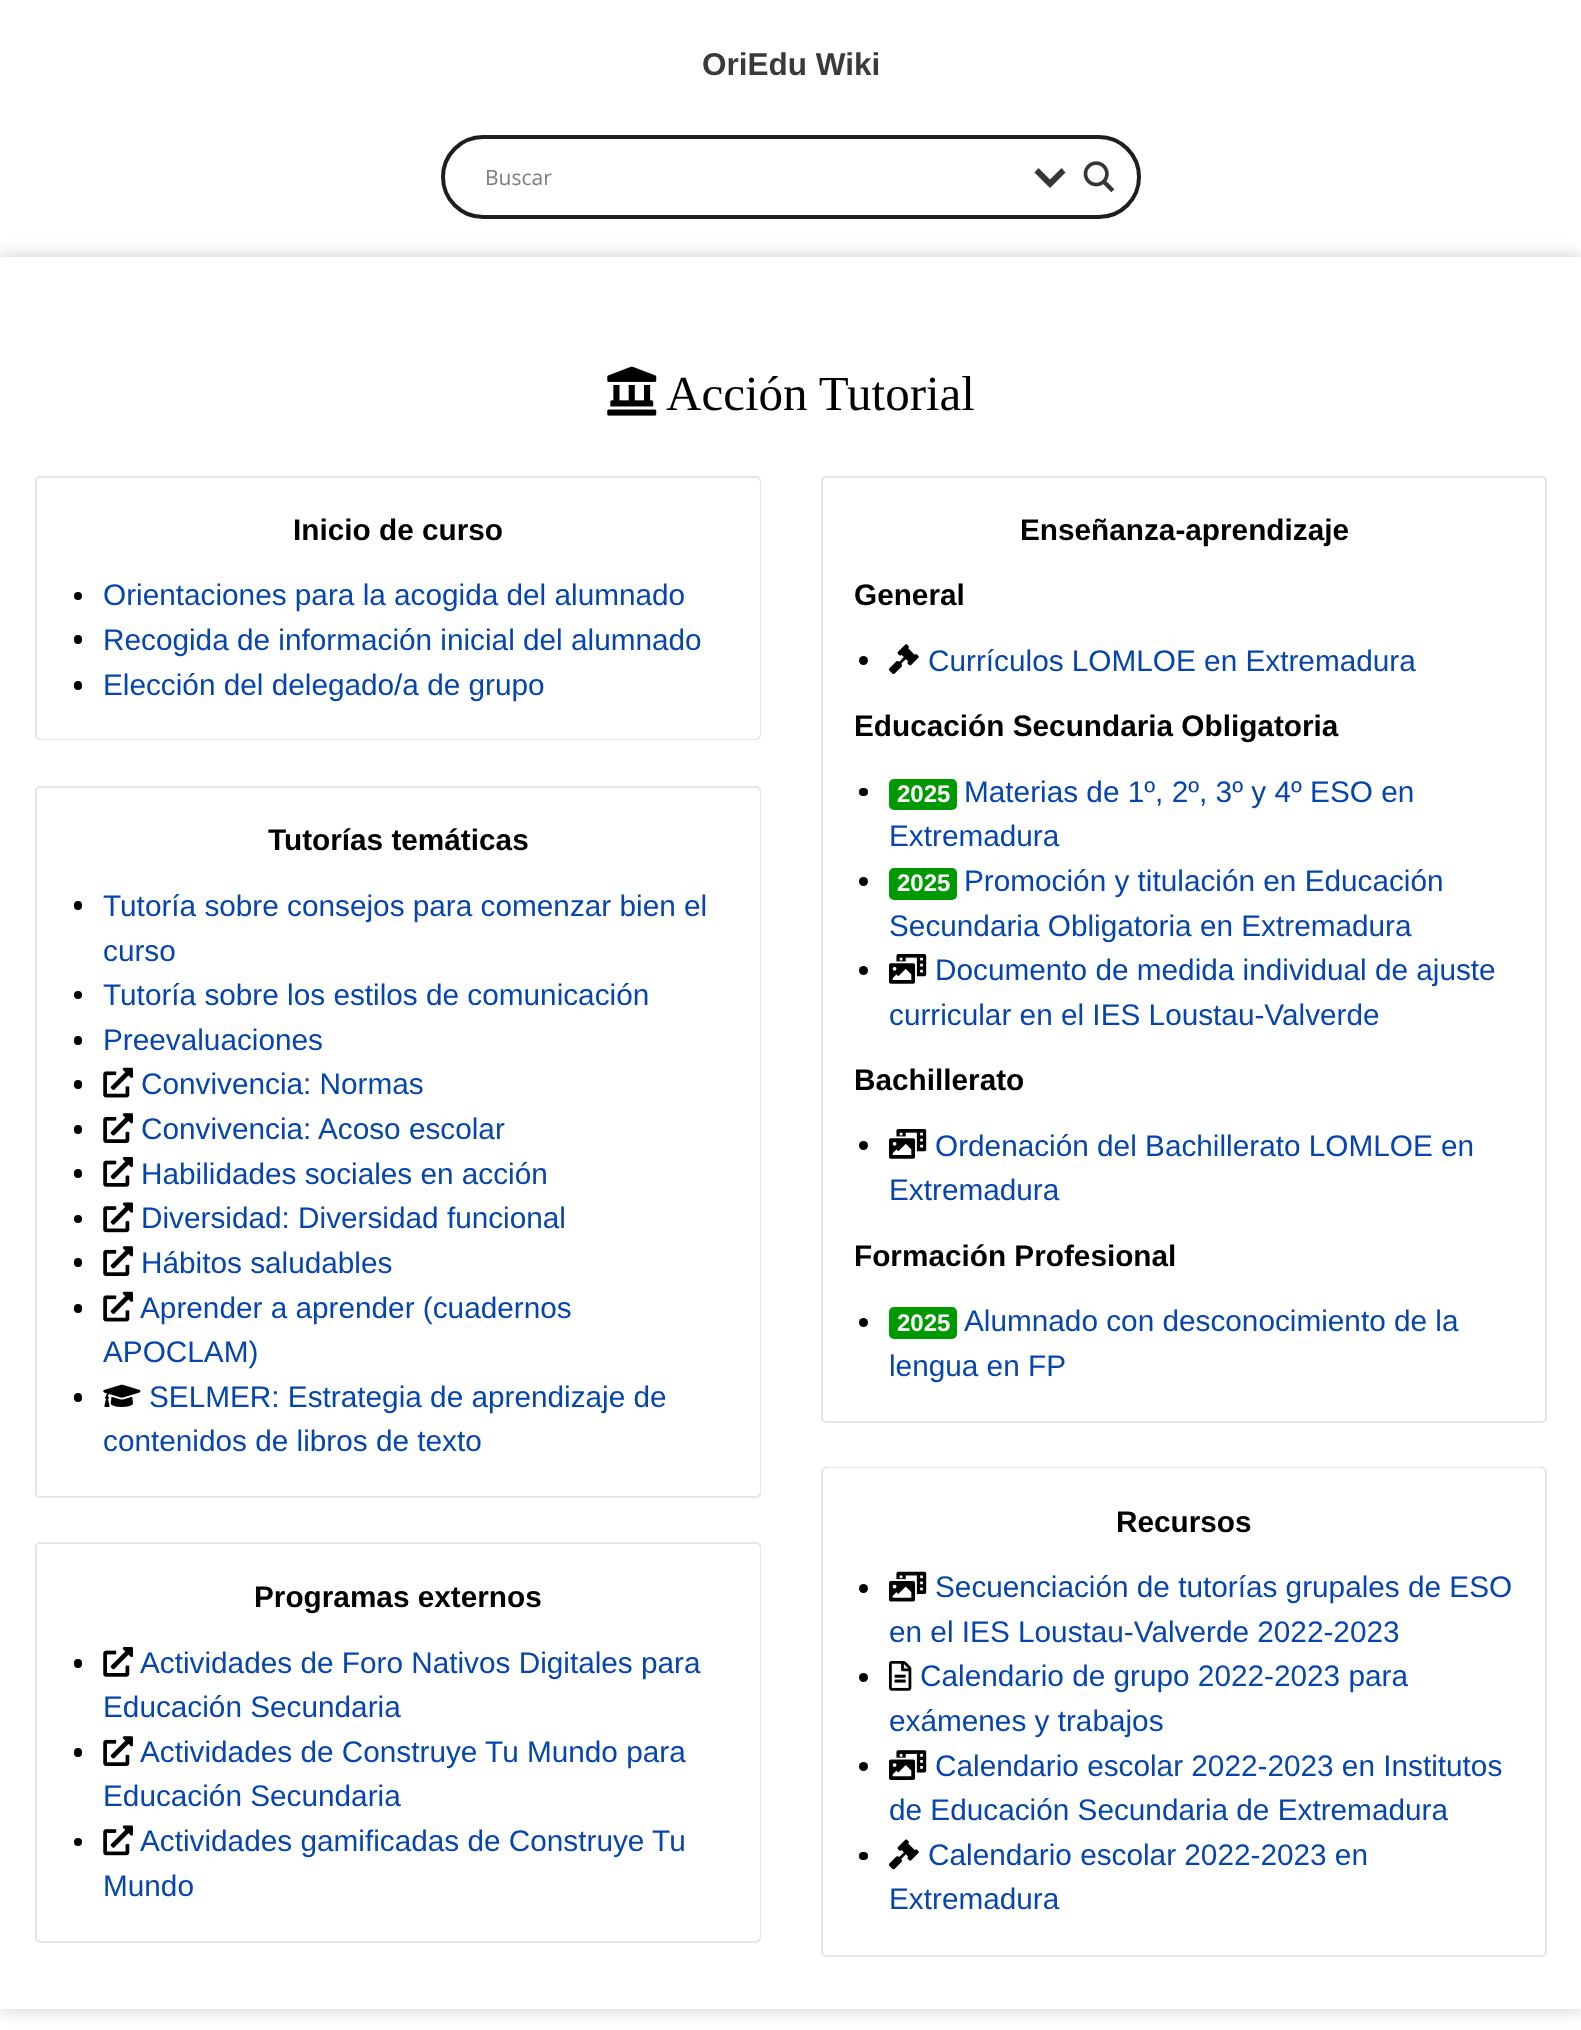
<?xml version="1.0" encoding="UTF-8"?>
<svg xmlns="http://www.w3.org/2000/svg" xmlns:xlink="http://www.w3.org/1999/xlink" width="1581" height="2030">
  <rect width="100%" height="100%" fill="#ffffff" />
  <rect x="443" y="137" width="696" height="80" rx="40" fill="none" stroke="#1e1e1e" stroke-width="4" />
  <path d="M 1061.5 168 l 4 4.5 l -15.5 15.5 l -15.5 -15.5 l 4 -4.5 l 11.5 11.5 z" fill="#363636" />
  <image x="1083" y="161" width="32" height="32" xlink:href="image1.png" />
  <rect y="257" width="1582" height="1752" fill="#cccccc" filter="blur(9px)" />
  <rect y="257" width="1581" height="1752" fill="#ffffff" />
  <image x="607" y="366" width="50" height="50" xlink:href="image2.png" />
  <rect x="36" y="477" width="724" height="262" rx="4" fill="none" stroke="#e5e5e5" stroke-width="2" />
  <rect x="38" y="479" width="721" height="259" rx="4" fill="#ffffff" stroke="#ffffff" stroke-width="2" />
  <circle cx="78" cy="596" r="4" fill="#000000" />
  <rect x="74" y="635" width="8" height="9" rx="4" fill="#000000" />
  <rect x="74" y="681" width="8" height="9" rx="4" fill="#000000" />
  <rect x="36" y="787" width="724" height="710" rx="4" fill="none" stroke="#e5e5e5" stroke-width="2" />
  <rect x="38" y="789" width="721" height="706" rx="4" fill="#ffffff" stroke="#ffffff" stroke-width="2" />
  <rect x="74" y="901" width="8" height="9" rx="4" fill="#000000" />
  <circle cx="78" cy="995" r="4" fill="#000000" />
  <rect x="74" y="1036" width="8" height="9" rx="4" fill="#000000" />
  <rect x="74" y="1080" width="8" height="9" rx="4" fill="#000000" />
  <image x="103" y="1067" width="30" height="31" xlink:href="image3.png" />
  <rect x="74" y="1125" width="8" height="9" rx="4" fill="#000000" />
  <image x="103" y="1113" width="30" height="30" xlink:href="image4.png" />
  <rect x="74" y="1169" width="8" height="9" rx="4" fill="#000000" />
  <image x="103" y="1157" width="30" height="30" xlink:href="image5.png" />
  <circle cx="78" cy="1219" r="4" fill="#000000" />
  <image x="103" y="1202" width="30" height="31" xlink:href="image6.png" />
  <rect x="74" y="1258" width="8" height="9" rx="4" fill="#000000" />
  <image x="103" y="1246" width="30" height="30" xlink:href="image4.png" />
  <rect x="74" y="1304" width="8" height="9" rx="4" fill="#000000" />
  <image x="103" y="1291" width="30" height="31" xlink:href="image3.png" />
  <rect x="74" y="1393" width="8" height="9" rx="4" fill="#000000" />
  <image x="103" y="1384" width="38" height="23" xlink:href="image7.png" />
  <rect x="36" y="1543" width="724" height="399" rx="4" fill="none" stroke="#e5e5e5" stroke-width="2" />
  <rect x="38" y="1545" width="721" height="395" rx="4" fill="#ffffff" stroke="#ffffff" stroke-width="2" />
  <rect x="74" y="1659" width="8" height="9" rx="4" fill="#000000" />
  <image x="103" y="1647" width="30" height="30" xlink:href="image5.png" />
  <rect x="74" y="1748" width="8" height="9" rx="4" fill="#000000" />
  <image x="103" y="1736" width="30" height="30" xlink:href="image4.png" />
  <circle cx="78" cy="1842" r="4" fill="#000000" />
  <image x="103" y="1825" width="30" height="31" xlink:href="image6.png" />
  <rect x="822" y="477" width="724" height="945" rx="4" fill="none" stroke="#e5e5e5" stroke-width="2" />
  <circle cx="863.5" cy="660.5" r="4.5" fill="#000000" />
  <image x="889" y="644" width="30" height="30" xlink:href="image8.png" />
  <rect x="859" y="788" width="9" height="8" rx="4" fill="#000000" />
  <rect x="889" y="779" width="68" height="31" rx="5" fill="#009900" />
  <circle cx="863.5" cy="881.5" r="4.5" fill="#000000" />
  <rect x="889" y="868" width="68" height="32" rx="5" fill="#009900" />
  <circle cx="863.5" cy="970.5" r="4.5" fill="#000000" />
  <image x="889" y="954" width="38" height="30" xlink:href="image9.png" />
  <circle cx="863.5" cy="1145.5" r="4.5" fill="#000000" />
  <image x="889" y="1129" width="38" height="30" xlink:href="image9.png" />
  <circle cx="863.5" cy="1322.5" r="4.5" fill="#000000" />
  <rect x="889" y="1307" width="68" height="32" rx="5" fill="#009900" />
  <rect x="822" y="1468" width="724" height="488" rx="4" fill="none" stroke="#e5e5e5" stroke-width="2" />
  <rect x="824" y="1469" width="720" height="485" rx="4" fill="#ffffff" stroke="#ffffff" stroke-width="2" />
  <circle cx="863.5" cy="1588.5" r="4.5" fill="#000000" />
  <image x="889" y="1571" width="38" height="31" xlink:href="image10.png" />
  <circle cx="863.5" cy="1677.5" r="4.5" fill="#000000" />
  <image x="889" y="1661" width="23" height="30" xlink:href="image11.png" />
  <circle cx="863.5" cy="1766.5" r="4.5" fill="#000000" />
  <image x="889" y="1750" width="38" height="30" xlink:href="image12.png" />
  <rect x="859" y="1852" width="9" height="8" rx="4" fill="#000000" />
  <image x="889" y="1839" width="30" height="31" xlink:href="image13.png" />
  <text x="702" y="75" style="font-family: Liberation Sans; font-size: 31.5px; font-weight: bold; fill: #3a3a3a">OriEdu Wiki</text>
  <text x="485" y="185" style="font-family: Open Sans; font-size: 21px; fill: #7d7d7d">Buscar</text>
  <text x="666" y="410" style="font-family: Liberation Serif; font-size: 49px; fill: #000000">Acción Tutorial</text>
  <text x="293" y="540" style="font-family: Liberation Sans; font-size: 29.75px; font-weight: bold; fill: #000000">Inicio de curso</text>
  <text x="103" y="605" style="font-family: Liberation Sans; font-size: 29.75px; fill: #0645ad">Orientaciones para la acogida del alumnado</text>
  <text x="103" y="650" style="font-family: Liberation Sans; font-size: 29.75px; fill: #0645ad">Recogida de información inicial del alumnado</text>
  <text x="103" y="695" style="font-family: Liberation Sans; font-size: 29.75px; fill: #0645ad">Elección del delegado/a de grupo</text>
  <text x="268" y="850" style="font-family: Liberation Sans; font-size: 29.75px; font-weight: bold; fill: #000000">Tutorías temáticas</text>
  <text x="103" y="916" style="font-family: Liberation Sans; font-size: 29.75px; fill: #0645ad">Tutoría sobre consejos para comenzar bien el</text>
  <text x="103" y="961" style="font-family: Liberation Sans; font-size: 29.75px; fill: #0645ad">curso</text>
  <text x="103" y="1005" style="font-family: Liberation Sans; font-size: 29.75px; fill: #0645ad">Tutoría sobre los estilos de comunicación</text>
  <text x="103" y="1050" style="font-family: Liberation Sans; font-size: 29.75px; fill: #0645ad">Preevaluaciones</text>
  <text x="141" y="1094" style="font-family: Liberation Sans; font-size: 29.75px; fill: #0645ad">Convivencia: Normas</text>
  <text x="141" y="1139" style="font-family: Liberation Sans; font-size: 29.75px; fill: #0645ad">Convivencia: Acoso escolar</text>
  <text x="141" y="1184" style="font-family: Liberation Sans; font-size: 29.75px; fill: #0645ad">Habilidades sociales en acción</text>
  <text x="141" y="1228" style="font-family: Liberation Sans; font-size: 29.75px; fill: #0645ad">Diversidad: Diversidad funcional</text>
  <text x="141" y="1273" style="font-family: Liberation Sans; font-size: 29.75px; fill: #0645ad">Hábitos saludables</text>
  <text x="140" y="1318" style="font-family: Liberation Sans; font-size: 29.75px; fill: #0645ad">Aprender a aprender (cuadernos</text>
  <text x="103" y="1362" style="font-family: Liberation Sans; font-size: 29.75px; fill: #0645ad">APOCLAM)</text>
  <text x="149" y="1407" style="font-family: Liberation Sans; font-size: 29.75px; fill: #0645ad">SELMER: Estrategia de aprendizaje de</text>
  <text x="103" y="1451" style="font-family: Liberation Sans; font-size: 29.75px; fill: #0645ad">contenidos de libros de texto</text>
  <text x="254" y="1607" style="font-family: Liberation Sans; font-size: 29.75px; font-weight: bold; fill: #000000">Programas externos</text>
  <text x="140" y="1673" style="font-family: Liberation Sans; font-size: 29.75px; fill: #0645ad">Actividades de Foro Nativos Digitales para</text>
  <text x="103" y="1717" style="font-family: Liberation Sans; font-size: 29.75px; fill: #0645ad">Educación Secundaria</text>
  <text x="140" y="1762" style="font-family: Liberation Sans; font-size: 29.75px; fill: #0645ad">Actividades de Construye Tu Mundo para</text>
  <text x="103" y="1806" style="font-family: Liberation Sans; font-size: 29.75px; fill: #0645ad">Educación Secundaria</text>
  <text x="140" y="1851" style="font-family: Liberation Sans; font-size: 29.75px; fill: #0645ad">Actividades gamificadas de Construye Tu</text>
  <text x="103" y="1896" style="font-family: Liberation Sans; font-size: 29.75px; fill: #0645ad">Mundo</text>
  <text x="1020" y="540" style="font-family: Liberation Sans; font-size: 29.75px; font-weight: bold; fill: #000000">Enseñanza-aprendizaje</text>
  <text x="854" y="605" style="font-family: Liberation Sans; font-size: 29.75px; font-weight: bold; fill: #000000">General</text>
  <text x="928" y="671" style="font-family: Liberation Sans; font-size: 29.75px; fill: #0645ad">Currículos LOMLOE en Extremadura</text>
  <text x="854" y="736" style="font-family: Liberation Sans; font-size: 29.75px; font-weight: bold; fill: #000000">Educación Secundaria Obligatoria</text>
  <text x="897" y="802" style="font-family: Liberation Sans; font-size: 24px; font-weight: bold; fill: #ffffff">2025</text>
  <text x="964" y="802" style="font-family: Liberation Sans; font-size: 29.75px; fill: #0645ad">Materias de 1º, 2º, 3º y 4º ESO en</text>
  <text x="889" y="846" style="font-family: Liberation Sans; font-size: 29.75px; fill: #0645ad">Extremadura</text>
  <text x="897" y="891" style="font-family: Liberation Sans; font-size: 24px; font-weight: bold; fill: #ffffff">2025</text>
  <text x="964" y="891" style="font-family: Liberation Sans; font-size: 29.75px; fill: #0645ad">Promoción y titulación en Educación</text>
  <text x="889" y="936" style="font-family: Liberation Sans; font-size: 29.75px; fill: #0645ad">Secundaria Obligatoria en Extremadura</text>
  <text x="935" y="980" style="font-family: Liberation Sans; font-size: 29.75px; fill: #0645ad">Documento de medida individual de ajuste</text>
  <text x="889" y="1025" style="font-family: Liberation Sans; font-size: 29.75px; fill: #0645ad">curricular en el IES Loustau-Valverde</text>
  <text x="854" y="1090" style="font-family: Liberation Sans; font-size: 29.75px; font-weight: bold; fill: #000000">Bachillerato</text>
  <text x="935" y="1156" style="font-family: Liberation Sans; font-size: 29.75px; fill: #0645ad">Ordenación del Bachillerato LOMLOE en</text>
  <text x="889" y="1200" style="font-family: Liberation Sans; font-size: 29.75px; fill: #0645ad">Extremadura</text>
  <text x="854" y="1266" style="font-family: Liberation Sans; font-size: 29.75px; font-weight: bold; fill: #000000">Formación Profesional</text>
  <text x="897" y="1331" style="font-family: Liberation Sans; font-size: 24px; font-weight: bold; fill: #ffffff">2025</text>
  <text x="964" y="1331" style="font-family: Liberation Sans; font-size: 29.75px; fill: #0645ad">Alumnado con desconocimiento de la</text>
  <text x="889" y="1376" style="font-family: Liberation Sans; font-size: 29.75px; fill: #0645ad">lengua en FP</text>
  <text x="1116" y="1532" style="font-family: Liberation Sans; font-size: 29.75px; font-weight: bold; fill: #000000">Recursos</text>
  <text x="935" y="1597" style="font-family: Liberation Sans; font-size: 29.75px; fill: #0645ad">Secuenciación de tutorías grupales de ESO</text>
  <text x="889" y="1642" style="font-family: Liberation Sans; font-size: 29.75px; fill: #0645ad">en el IES Loustau-Valverde 2022-2023</text>
  <text x="920" y="1686" style="font-family: Liberation Sans; font-size: 29.75px; fill: #0645ad">Calendario de grupo 2022-2023 para</text>
  <text x="889" y="1731" style="font-family: Liberation Sans; font-size: 29.75px; fill: #0645ad">exámenes y trabajos</text>
  <text x="935" y="1776" style="font-family: Liberation Sans; font-size: 29.75px; fill: #0645ad">Calendario escolar 2022-2023 en Institutos</text>
  <text x="889" y="1820" style="font-family: Liberation Sans; font-size: 29.75px; fill: #0645ad">de Educación Secundaria de Extremadura</text>
  <text x="928" y="1865" style="font-family: Liberation Sans; font-size: 29.75px; fill: #0645ad">Calendario escolar 2022-2023 en</text>
  <text x="889" y="1909" style="font-family: Liberation Sans; font-size: 29.75px; fill: #0645ad">Extremadura</text>
</svg>
